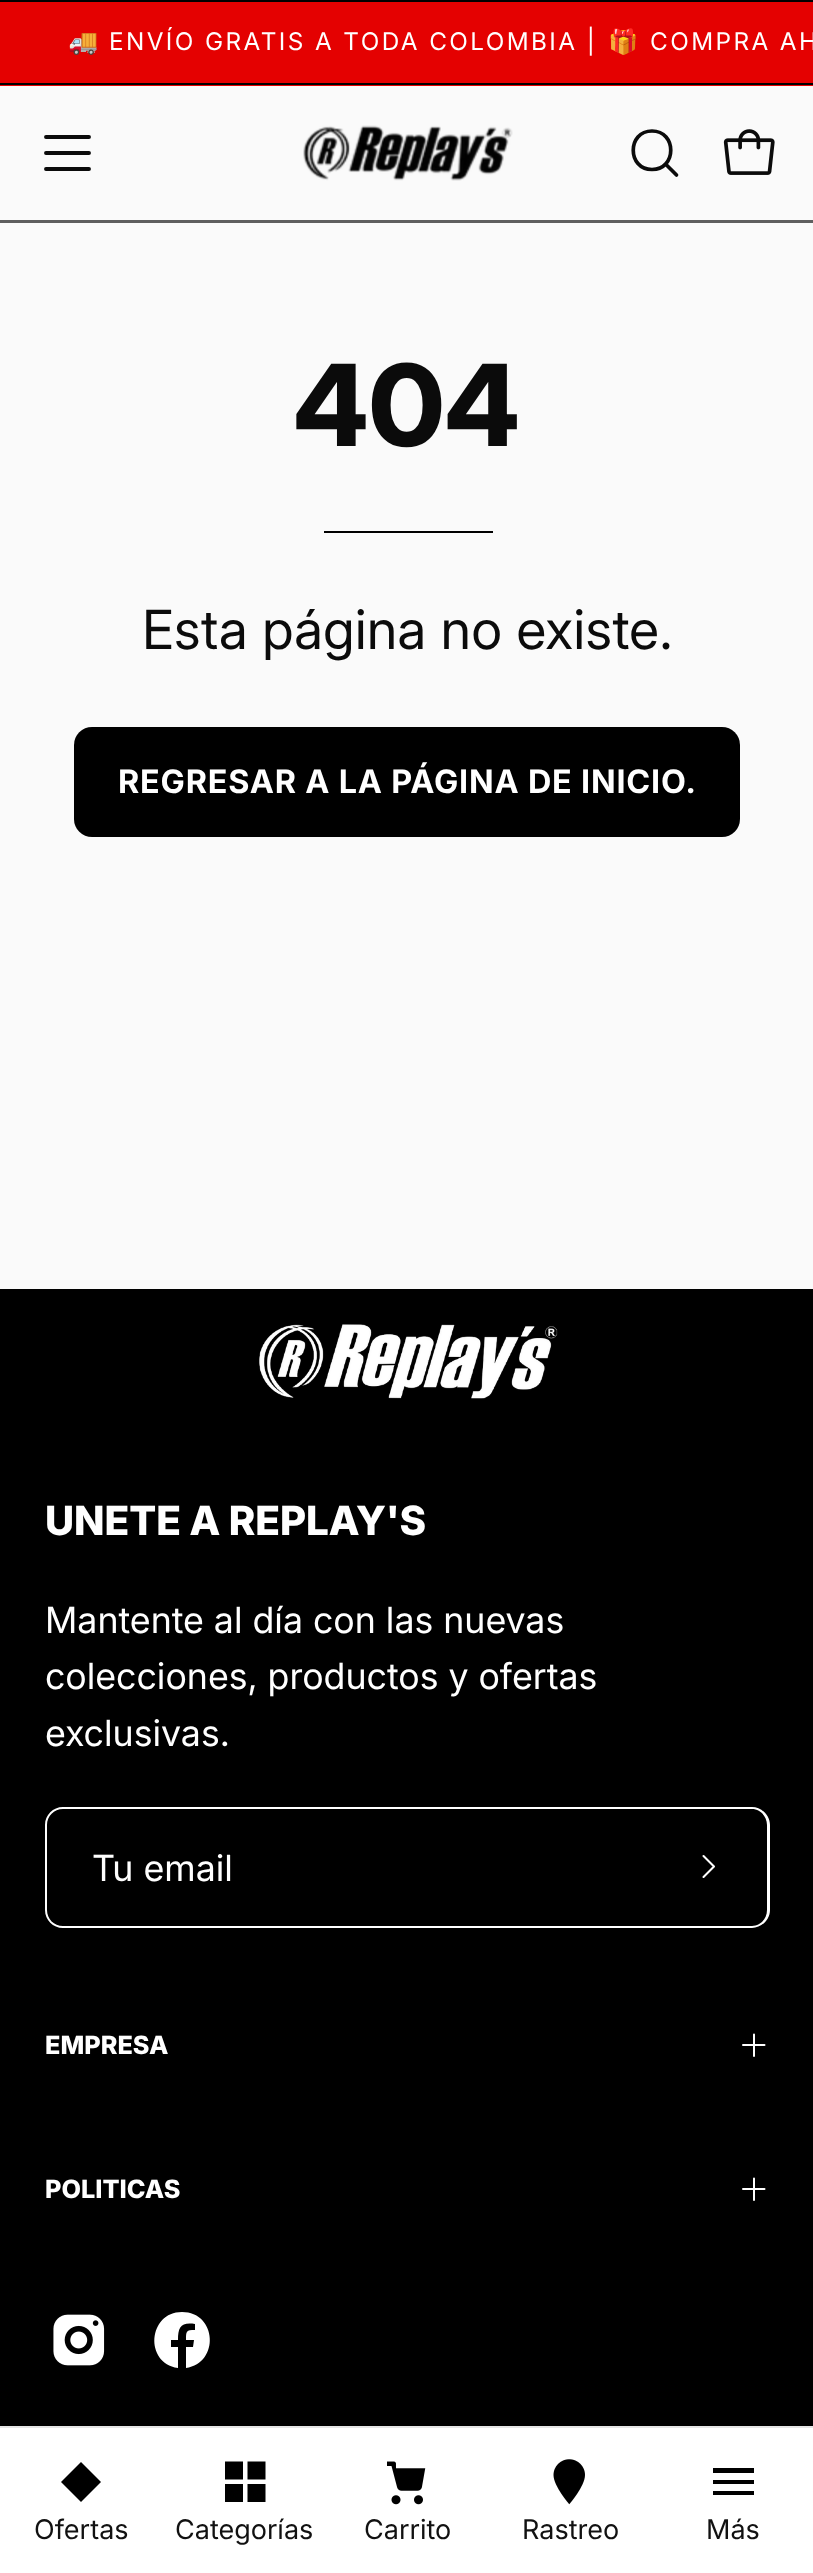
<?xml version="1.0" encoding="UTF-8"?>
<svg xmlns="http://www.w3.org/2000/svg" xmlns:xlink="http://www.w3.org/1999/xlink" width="813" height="2573">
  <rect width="100%" height="100%" fill="#fafafa" />
  <rect y="2" width="813" height="84" fill="#e40101" />
  <rect width="813" height="2" fill="#000000" />
  <rect y="83" width="813" height="2" fill="#000000" />
  <path d="M 46 153 h 43 m -43 -16 h 43 m -43 32 h 43" fill="none" stroke="#0b0b0b" stroke-width="3.9" stroke-linecap="round" stroke-linejoin="round" />
  <image x="303" y="125" width="210" height="56" xlink:href="image1.png" />
  <path d="M 652 169.5 c 25 0 25 -38.5 0 -38.5 c -25 0 -25 38.5 0 38.5 z m 13.5 -5.5 l 11 11" fill="none" stroke="#0b0b0b" stroke-width="3.7" stroke-linecap="round" stroke-linejoin="round" />
  <image x="723" y="129" width="52" height="46" xlink:href="image2.png" />
  <path d="M 0 220 v 3 h 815 v -135 h -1 v 132 z" fill="#5f5f5f" />
  <rect x="324" y="531" width="169" height="2" fill="#000000" />
  <rect x="74" y="727" width="666" height="110" rx="18" fill="#000000" />
  <rect y="1289" width="813" height="1137" fill="#000000" />
  <image x="259" y="1324" width="299" height="75" xlink:href="image3.png" />
  <path d="M 63 1807 h 585 v 121 h -585 c -10 0 -18 -8 -18 -18 v -85 c 0 -10 8 -18 18 -18 z m 0 2 h 585 v 117 h -585 c -9 0 -16 -7 -16 -16 v -85 c 0 -9 7 -16 16 -16 z" fill="#ffffff" fill-rule="evenodd" />
  <path d="M 648 1807 h 104 c 9 0 18 8 18 18 v 85 c 0 10 -9 18 -18 18 h -104 z m 0 2 h 104 c 8 0 15 7 15 16 v 85 c 0 9 -7 16 -15 16 h -104 z" fill="#ffffff" fill-rule="evenodd" />
  <path d="M 703.5 1856 l 10.5 10.5 l -10.5 10.5" fill="none" stroke="#ffffff" stroke-width="2.1" stroke-linecap="round" stroke-linejoin="round" />
  <path d="M 743 2045 h 21.5 m -10.5 -10.5 v 21.5" fill="none" stroke="#ffffff" stroke-width="2" stroke-linecap="round" stroke-linejoin="round" />
  <path d="M 743 2189 h 21.5 m -10.5 -10.5 v 21.5" fill="none" stroke="#ffffff" stroke-width="2" stroke-linecap="round" stroke-linejoin="round" />
  <image x="53" y="2314" width="52" height="52" xlink:href="image4.png" />
  <path d="M 182 2312 c -34 0 -38 51 -4 56 v -21 h -7 v -7 h 7 c 0 -13 3 -18 17 -16 v 6 c -9 0 -9 1 -9 10 h 8 l -1 7 h -7 v 21 c 34 -5 31 -56 -4 -56 z" fill="#ffffff" />
  <rect y="2428" width="813" height="145" fill="#ffffff" />
  <rect y="2426" width="813" height="2" fill="#e5e5e5" />
  <path d="M 61 2482 l 20 -20 l 20 20 l -20 20 z" fill="#000000" />
  <image x="225" y="2461" width="41" height="41" xlink:href="image5.png" />
  <image x="387" y="2461" width="39" height="44" xlink:href="image6.png" />
  <image x="553" y="2459" width="32" height="46" xlink:href="image7.png" />
  <path d="M 713 2468 h 41 v 5 h -41 z m 0 12 h 41 v 4 h -41 z m 0 11 h 41 v 4 h -41 z" fill="#000000" />
  <text x="68" y="50" style="font-family: Noto Color Emoji; font-size: 24.3px; letter-spacing: 2.4px; fill: #ffffff">🚚</text>
  <text x="109" y="50" style="font-family: 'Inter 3'; font-size: 24.3px; letter-spacing: 2.4px; fill: #ffffff">ENVÍO GRATIS A TODA COLOMBIA |</text>
  <text x="608" y="50" style="font-family: Noto Color Emoji; font-size: 24.3px; letter-spacing: 2.4px; fill: #ffffff">🎁</text>
  <text x="650" y="50" style="font-family: 'Inter 3'; font-size: 24.3px; letter-spacing: 2.4px; fill: #ffffff">COMPRA AH</text>
  <text x="293" y="446" style="font-family: Inter; font-size: 113px; font-weight: 800; fill: #0b0b0b">404</text>
  <text x="142" y="649" style="font-family: Inter; font-size: 54px; fill: #0b0b0b">Esta página no existe.</text>
  <text x="118" y="793" style="font-family: Inter; font-size: 32.4px; font-weight: bold; letter-spacing: 0.8px; fill: #ffffff">REGRESAR A LA PÁGINA DE INICIO.</text>
  <text x="45" y="1535" style="font-family: 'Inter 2'; font-size: 40.25px; font-weight: 800; fill: #ffffff">UNETE A REPLAY'S</text>
  <text x="45" y="1633" style="font-family: 'Inter 2'; font-size: 36px; fill: #ffffff">Mantente al día con las nuevas</text>
  <text x="45" y="1689" style="font-family: 'Inter 2'; font-size: 36px; fill: #ffffff">colecciones, productos y ofertas</text>
  <text x="45" y="1746" style="font-family: 'Inter 2'; font-size: 36px; fill: #ffffff">exclusivas.</text>
  <text x="92" y="1881" style="font-family: 'Inter 2'; font-size: 36px; fill: #ffffff">Tu email</text>
  <text x="45" y="2054" style="font-family: 'Inter 3'; font-size: 25.25px; font-weight: 800; fill: #ffffff">EMPRESA</text>
  <text x="45" y="2198" style="font-family: 'Inter 3'; font-size: 25.25px; font-weight: 800; fill: #ffffff">POLITICAS</text>
  <text x="34" y="2539" style="font-family: 'Inter 3'; font-size: 27px; fill: #111111">Ofertas</text>
  <text x="175" y="2539" style="font-family: 'Inter 3'; font-size: 27px; fill: #111111">Categorías</text>
  <text x="364" y="2539" style="font-family: 'Inter 3'; font-size: 27px; fill: #111111">Carrito</text>
  <text x="522" y="2539" style="font-family: 'Inter 3'; font-size: 27px; fill: #111111">Rastreo</text>
  <text x="706" y="2539" style="font-family: 'Inter 3'; font-size: 27px; fill: #111111">Más</text>
</svg>
